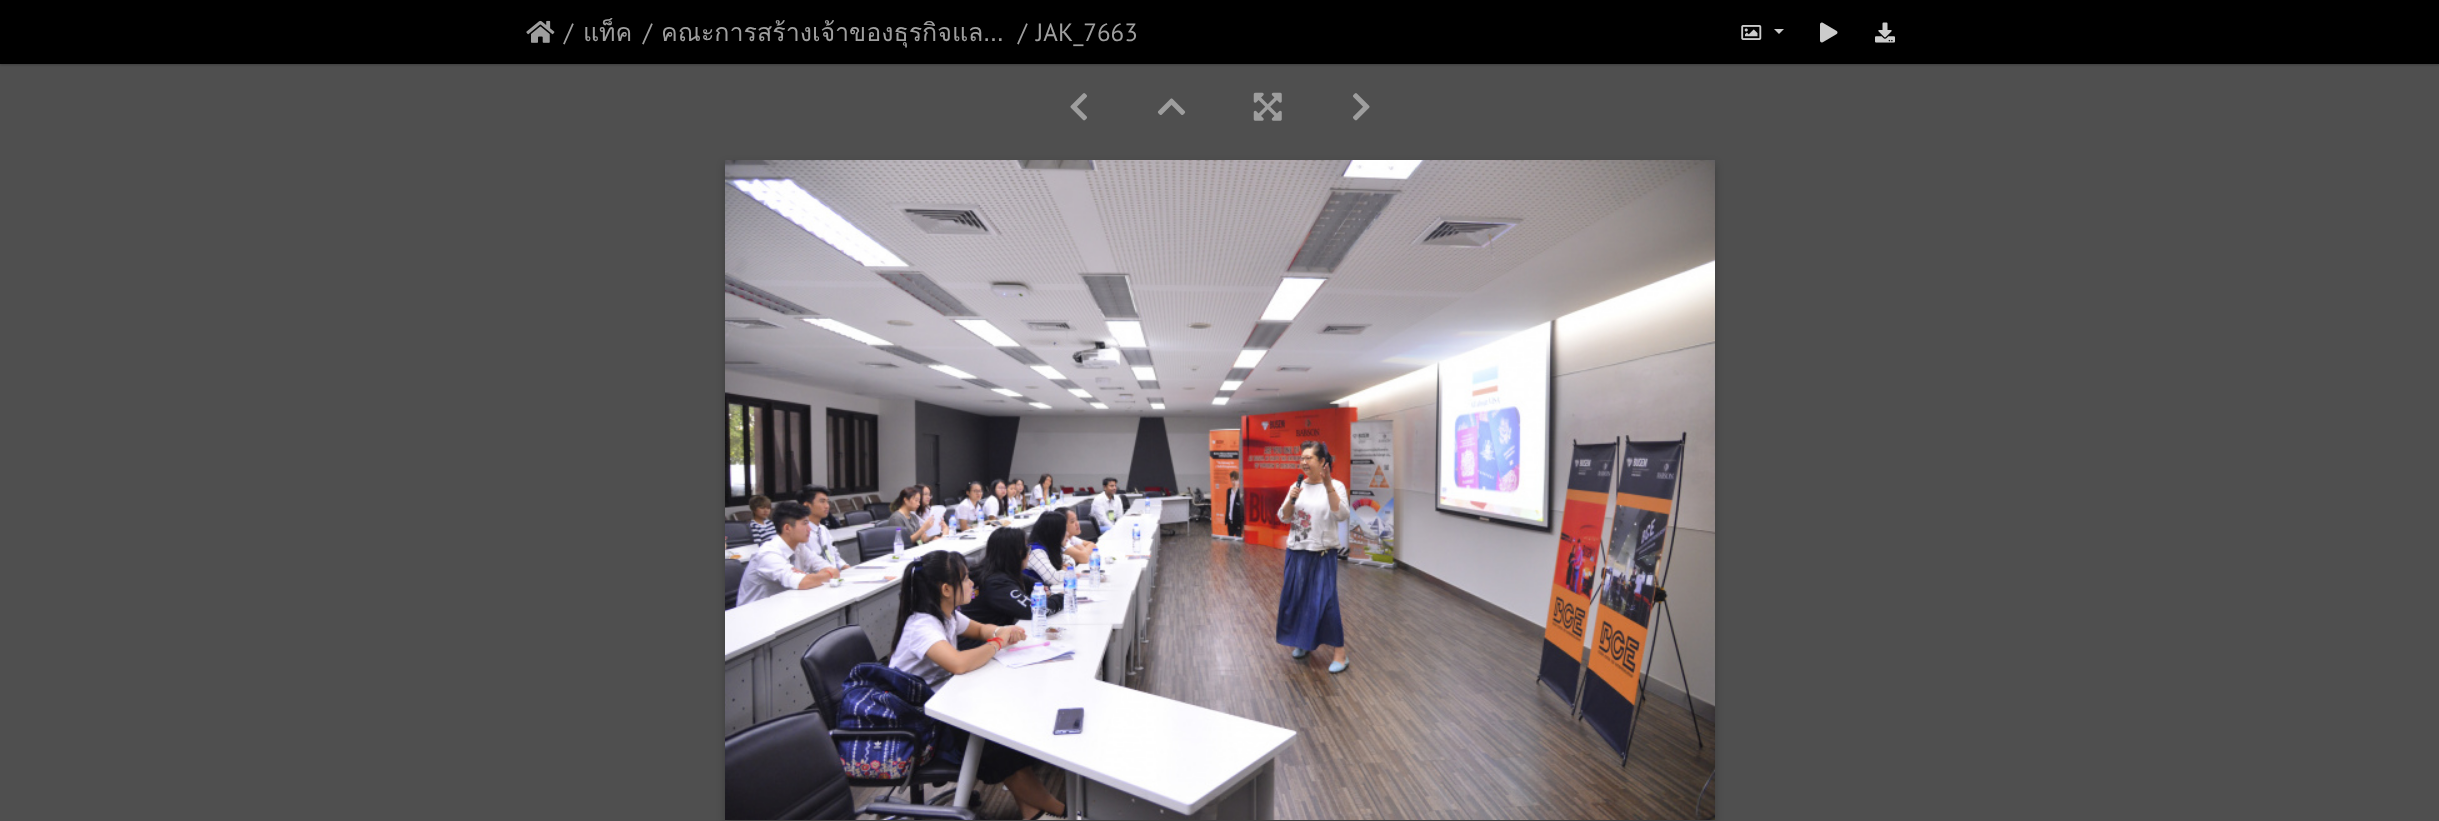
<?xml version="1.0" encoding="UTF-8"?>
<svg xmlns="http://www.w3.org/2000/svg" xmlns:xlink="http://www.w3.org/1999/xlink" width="2439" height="821">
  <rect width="100%" height="100%" fill="#4f4f4f" />
  <rect y="1" width="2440" height="64" fill="#000000" fill-opacity="0.24" filter="blur(1px)" />
  <rect width="2439" height="64" fill="#000000" />
  <image x="526" y="20" width="29" height="23" xlink:href="image1.png" />
  <image x="1741" y="25" width="21" height="15" xlink:href="image2.png" />
  <path d="M 1774 29 h 10 l -5 5 z" fill="#cccccc" />
  <image x="1820" y="22" width="18" height="21" xlink:href="image3.png" />
  <image x="1875" y="22" width="20" height="21" xlink:href="image4.png" />
  <image x="1070" y="93" width="17" height="28" xlink:href="image5.png" />
  <image x="1157" y="98" width="29" height="17" xlink:href="image6.png" />
  <image x="1253" y="92" width="29" height="29" xlink:href="image7.png" />
  <image x="1353" y="93" width="17" height="28" xlink:href="image8.png" />
  <rect x="725" y="164" width="990" height="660" fill="#000000" fill-opacity="0.23" filter="blur(4px)" />
  <image x="725" y="160" width="990" height="660" xlink:href="image9.png" />
  <text x="564" y="41" style="font-family: PT Sans; font-size: 25px; fill: #9e9e9e">/</text>
  <text x="583" y="41" style="font-family: Loma; font-size: 25px; fill: #9e9e9e">แท็ค</text>
  <text x="643" y="41" style="font-family: PT Sans; font-size: 25px; fill: #9e9e9e">/</text>
  <text x="661" y="41" style="font-family: Loma; font-size: 25px; fill: #9e9e9e">คณะการสร้างเจ้าของธุรกิจแล…</text>
  <text x="1018" y="41" style="font-family: PT Sans; font-size: 25px; fill: #9e9e9e">/</text>
  <text x="1036" y="41" style="font-family: PT Sans; font-size: 25px; fill: #9e9e9e">JAK_7663</text>
</svg>
